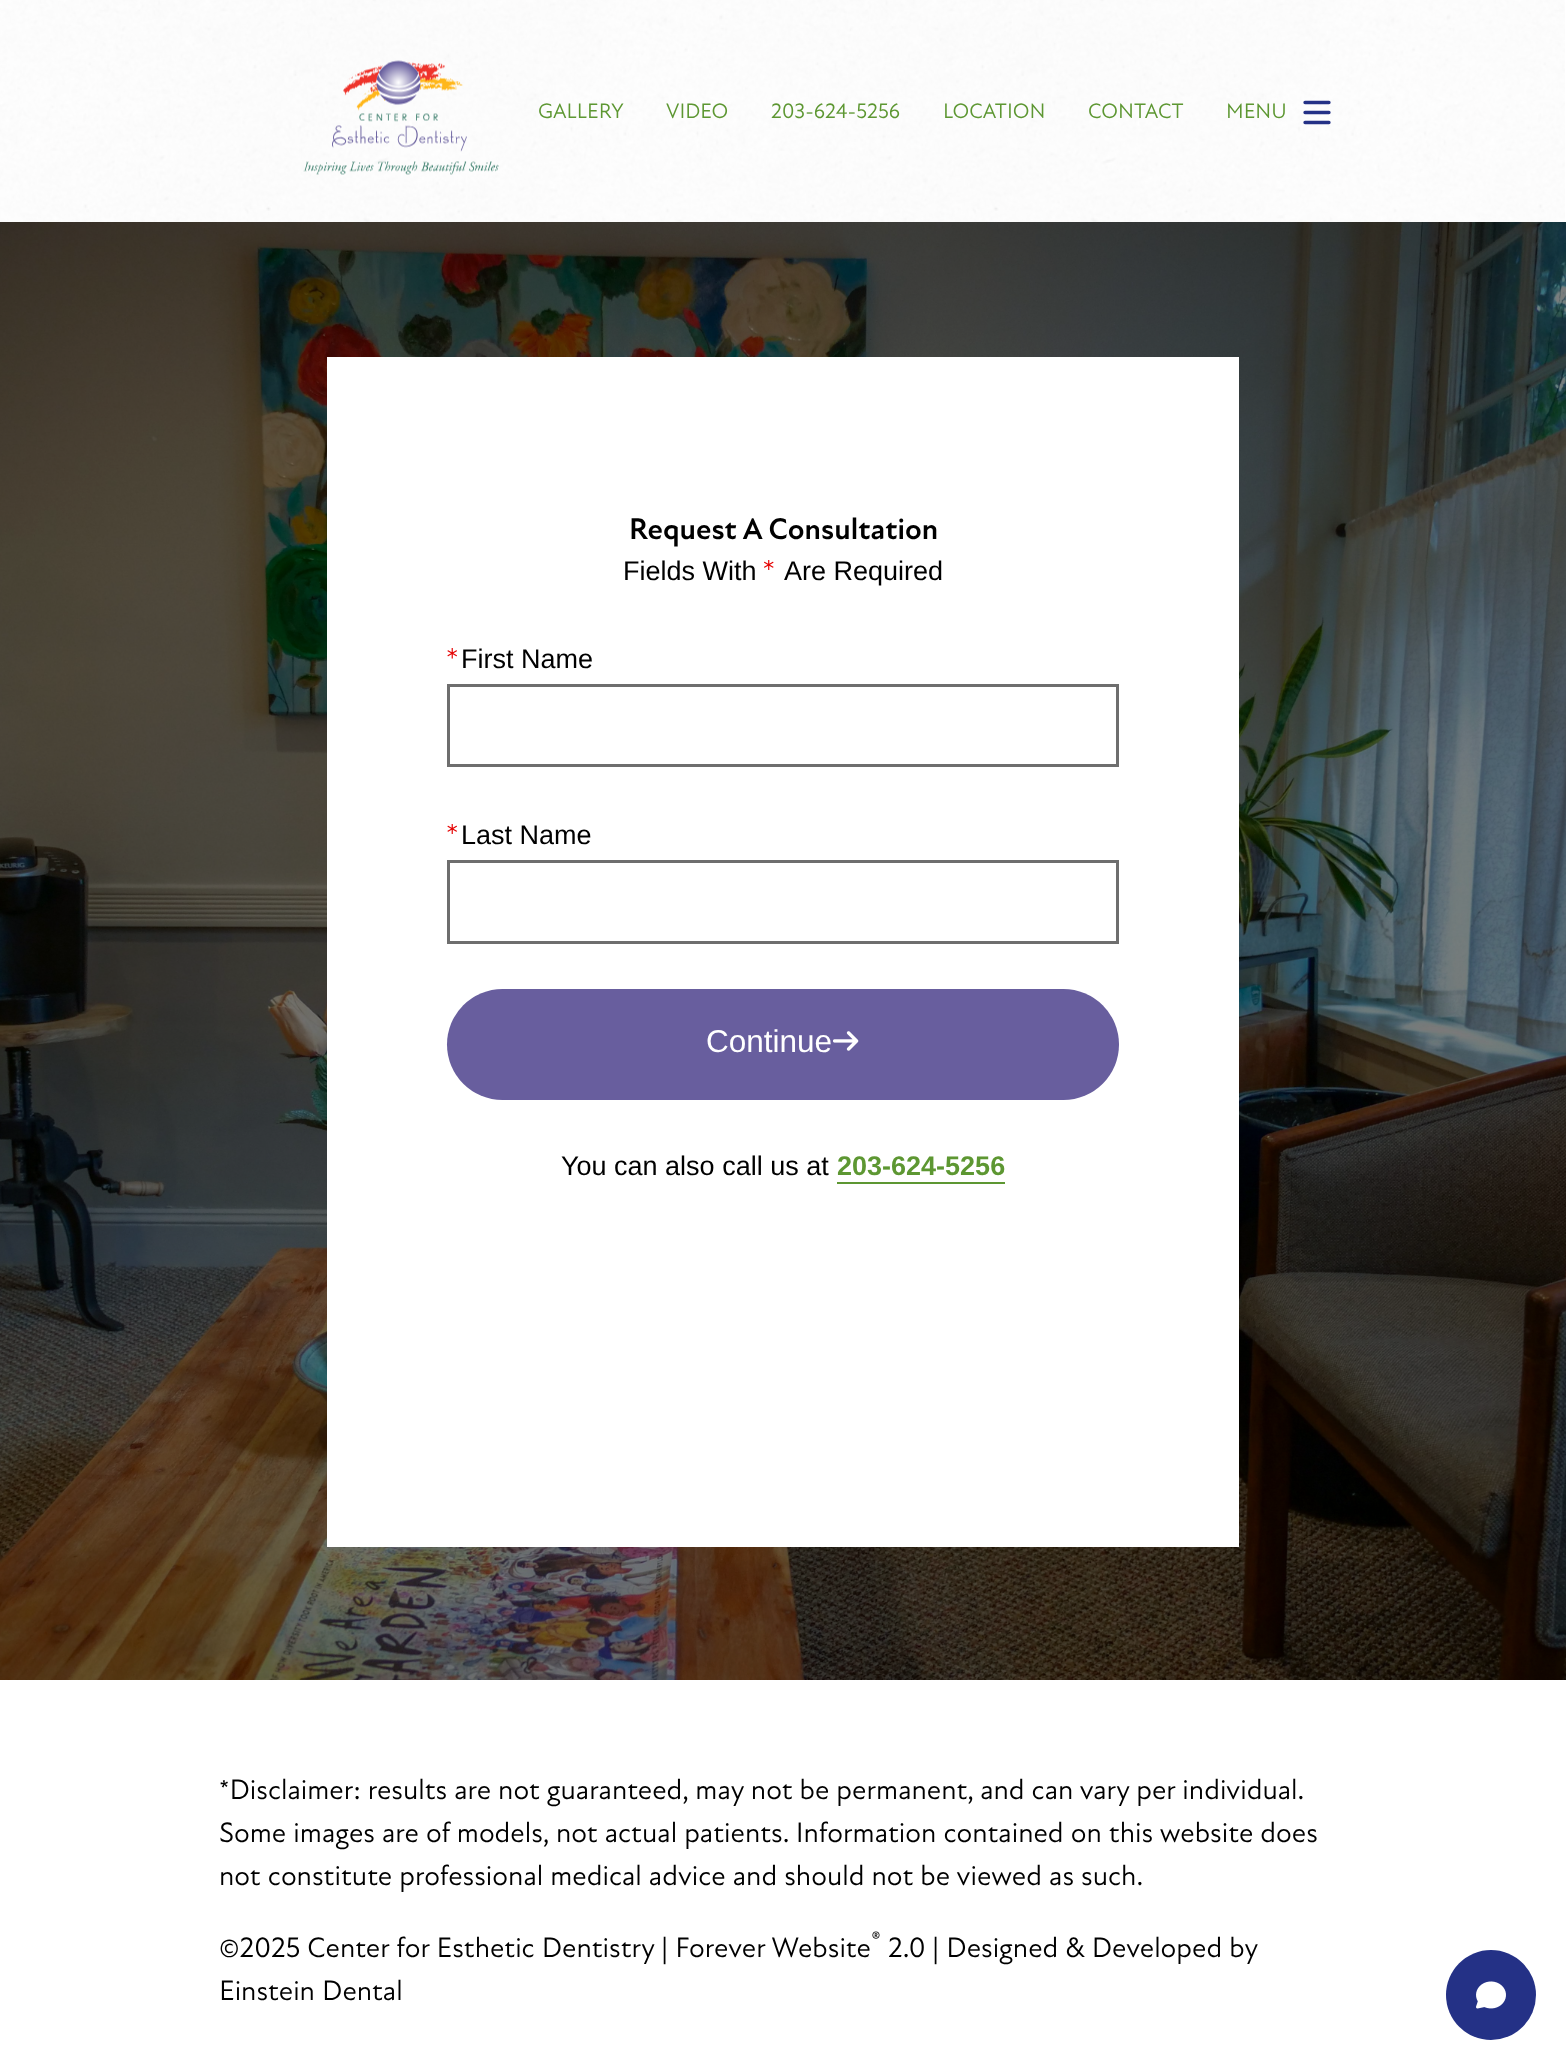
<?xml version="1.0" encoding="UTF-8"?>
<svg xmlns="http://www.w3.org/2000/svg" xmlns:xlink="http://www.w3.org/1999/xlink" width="1566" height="2070">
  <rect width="100%" height="100%" fill="#ffffff" />
  <image x="0" y="0" width="1565" height="222" xlink:href="image2.png" />
  <image x="303" y="60" width="196" height="115" xlink:href="image1.png" />
  <path d="M 1329 102.5 h -24 m 24 10 h -24 m 0 10 h 24" fill="none" stroke="#243186" stroke-width="3.3" stroke-linecap="round" />
  <rect y="222" width="1566" height="1458" fill="#000000" />
  <image x="0" y="222" width="1566" height="1458" xlink:href="image3.png" />
  <rect x="327" y="357" width="912" height="1190" fill="#ffffff" />
  <image x="764" y="560" width="10" height="10" xlink:href="image4.png" />
  <image x="447" y="648" width="10" height="11" xlink:href="image5.png" />
  <rect x="448.5" y="685.5" width="669" height="80" fill="none" stroke="#6e6e6e" stroke-width="3" />
  <image x="447" y="824" width="10" height="10" xlink:href="image6.png" />
  <rect x="448.5" y="861.5" width="669" height="81" fill="none" stroke="#6e6e6e" stroke-width="3" />
  <rect x="447" y="989" width="672" height="111" rx="55.5" fill="#685e9e" />
  <image x="833" y="1031" width="26" height="20" xlink:href="image7.png" />
  <rect x="837" y="1182" width="168" height="2" fill="#5d9732" />
  <circle cx="1491" cy="1995" r="45" fill="#243186" />
  <image x="1476" y="1981" width="30" height="28" xlink:href="image8.png" />
  <text x="538" y="118" style="font-family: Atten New; font-size: 21.25px; fill: #5d9732">GALLERY</text>
  <text x="666" y="118" style="font-family: Atten New; font-size: 21.25px; fill: #5d9732">VIDEO</text>
  <text x="771" y="118" style="font-family: Atten New; font-size: 21.25px; fill: #5d9732">203-624-5256</text>
  <text x="943" y="118" style="font-family: Atten New; font-size: 21.25px; fill: #5d9732">LOCATION</text>
  <text x="1088" y="118" style="font-family: Atten New; font-size: 21.25px; fill: #5d9732">CONTACT</text>
  <text x="1226" y="118" style="font-family: Atten New; font-size: 21.25px; fill: #5d9732">MENU</text>
  <text x="629" y="539" style="font-family: Atten New; font-size: 30.4px; font-weight: bold; fill: #000000">Request A Consultation</text>
  <text x="623" y="580" style="font-family: Liberation Sans; font-size: 27px; fill: #000000">Fields With</text>
  <text x="784" y="580" style="font-family: Liberation Sans; font-size: 27px; fill: #000000">Are Required</text>
  <text x="461" y="668" style="font-family: Liberation Sans; font-size: 27px; fill: #000000">First Name</text>
  <text x="461" y="844" style="font-family: Liberation Sans; font-size: 27px; fill: #000000">Last Name</text>
  <text x="706" y="1052" style="font-family: Liberation Sans; font-size: 31.5px; fill: #ffffff">Continue</text>
  <text x="561" y="1175" style="font-family: Liberation Sans; font-size: 27px; fill: #000000">You can also call us at</text>
  <text x="837" y="1175" style="font-family: Liberation Sans; font-size: 27px; font-weight: bold; fill: #5d9732">203-624-5256</text>
  <text x="219" y="1799" word-spacing="-0.1" style="font-family: Atten New; font-size: 28.65px; fill: #000000">*Disclaimer: results are not guaranteed, may not be permanent, and can vary per individual.</text>
  <text x="219" y="1842" style="font-family: Atten New; font-size: 28.65px; fill: #000000">Some images are of models, not actual patients. Information contained on this website does</text>
  <text x="219" y="1885" style="font-family: Atten New; font-size: 28.65px; fill: #000000">not constitute professional medical advice and should not be viewed as such.</text>
  <text x="871" y="1946" style="font-family: Atten New; font-size: 24px; fill: #000000">®</text>
  <text x="219" y="1957" style="font-family: Atten New; font-size: 28.65px; fill: #000000">©2025 Center for Esthetic Dentistry</text>
  <text x="661" y="1957" style="font-family: Atten New; font-size: 28.65px; fill: #000000">| Forever Website</text>
  <text x="888" y="1957" style="font-family: Atten New; font-size: 28.65px; fill: #000000">2.0</text>
  <text x="932" y="1957" style="font-family: Atten New; font-size: 28.65px; fill: #000000">| Designed &amp; Developed by</text>
  <text x="219" y="2000" style="font-family: Atten New; font-size: 28.65px; fill: #000000">Einstein Dental</text>
</svg>
